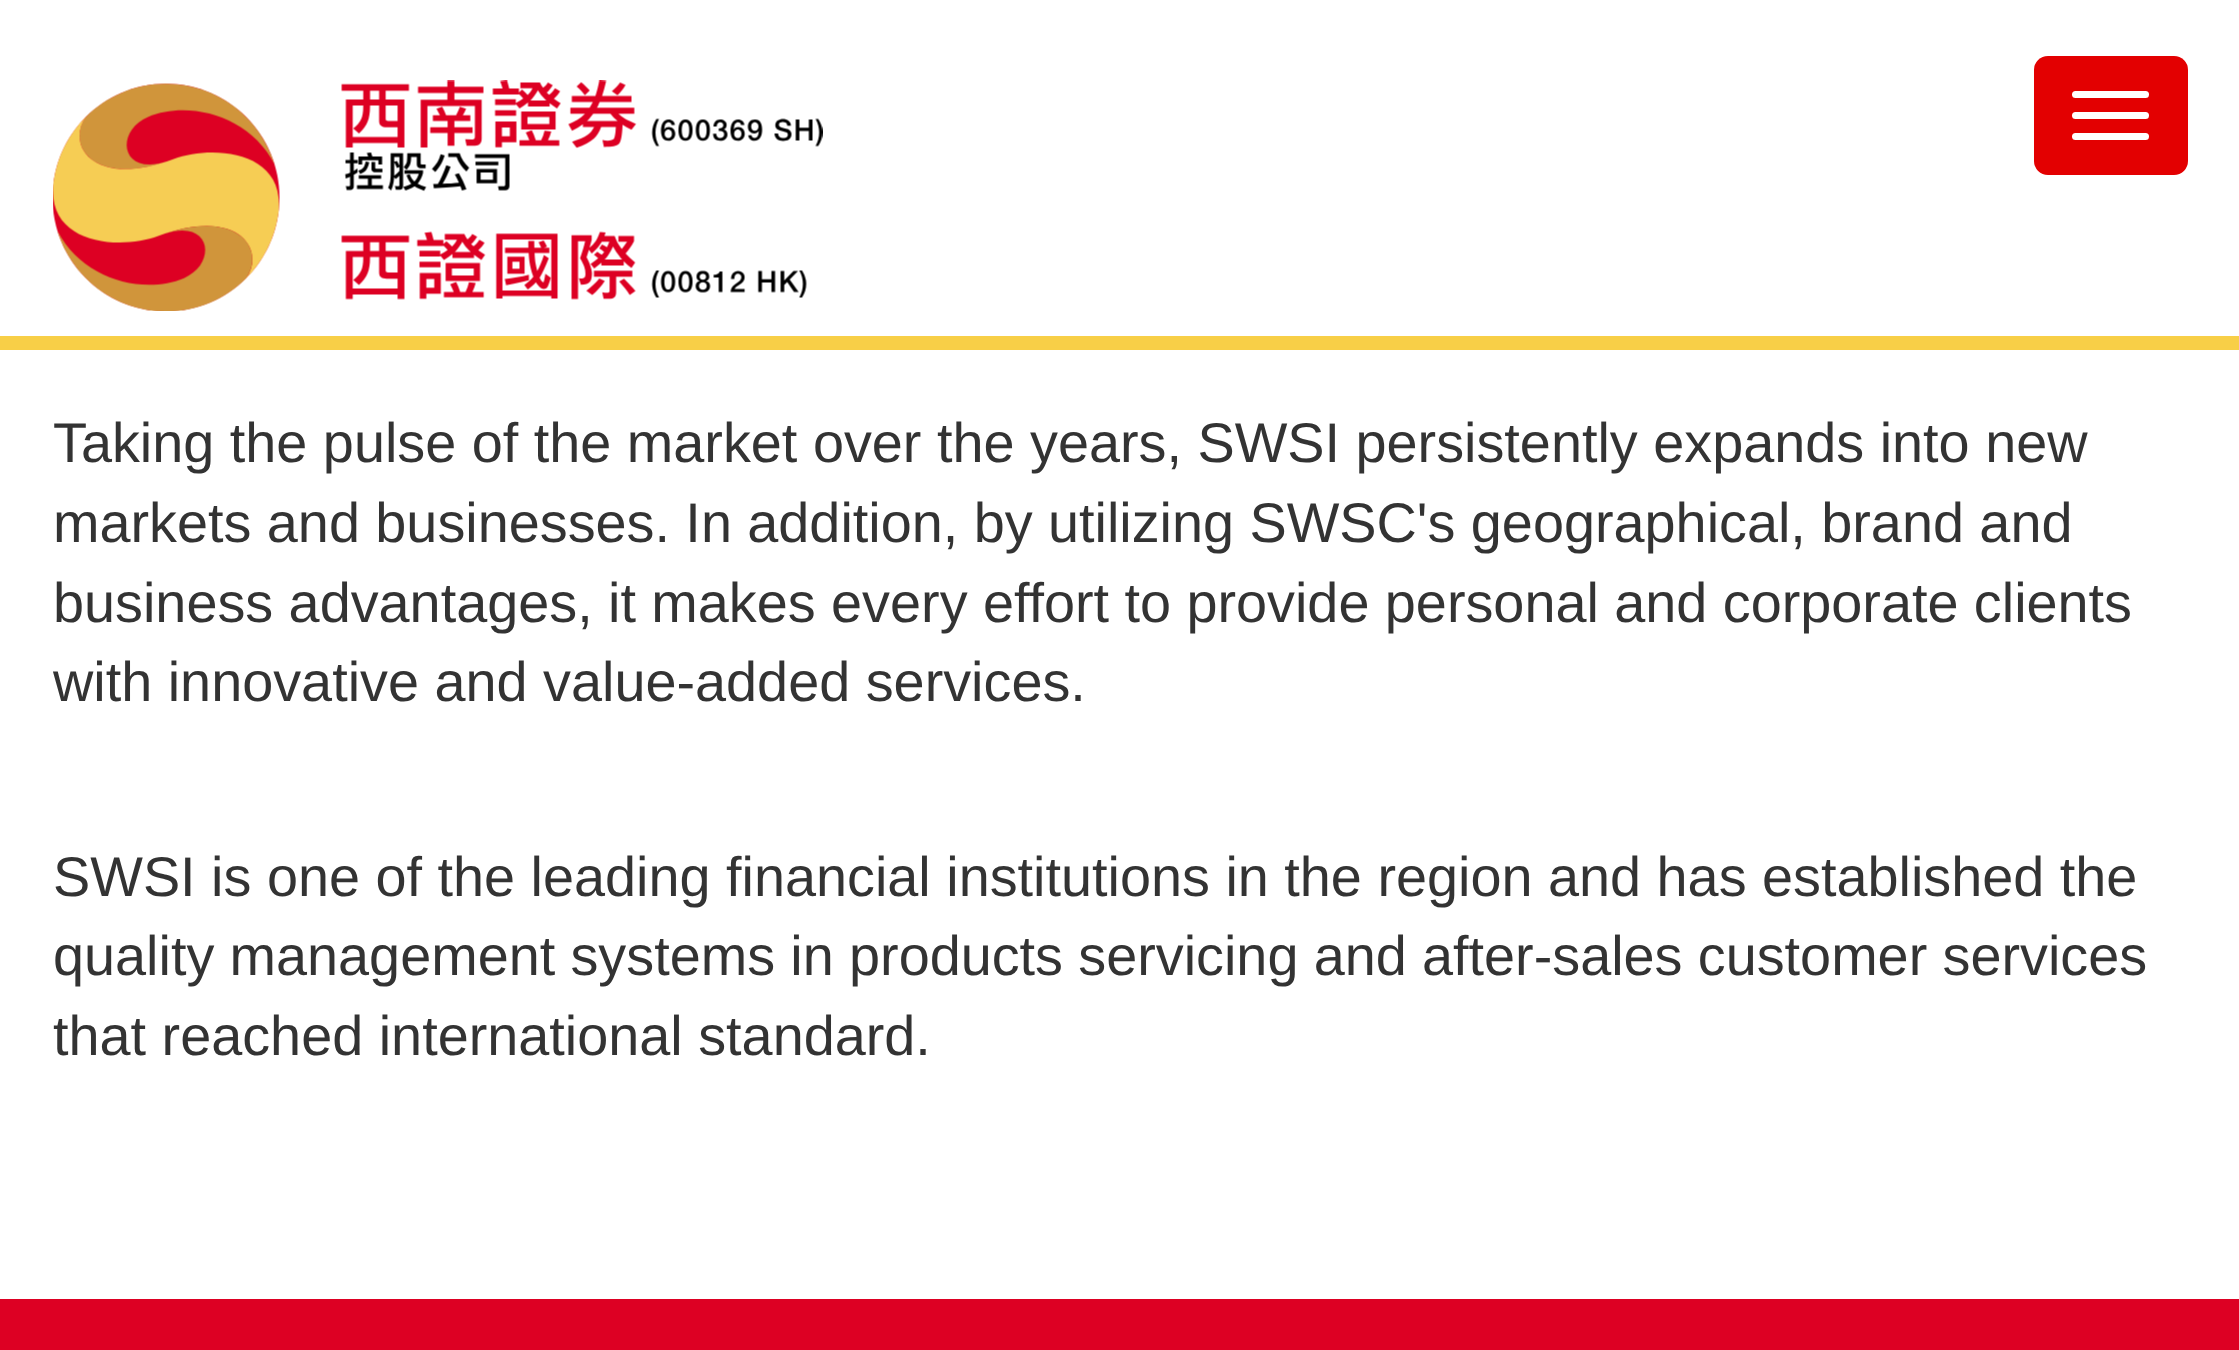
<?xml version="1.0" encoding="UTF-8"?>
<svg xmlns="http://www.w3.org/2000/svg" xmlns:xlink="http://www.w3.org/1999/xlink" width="2239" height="1350">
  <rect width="100%" height="100%" fill="#ffffff" />
  <rect y="336" width="2239" height="14" fill="#f8cf47" />
  <image x="53" y="80" width="770" height="231" xlink:href="image1.png" />
  <rect x="2034" y="56" width="154" height="119" rx="14" fill="#e30001" />
  <rect x="2072" y="91" width="77" height="7" rx="3.5" fill="#ffffff" />
  <rect x="2072" y="112" width="77" height="7" rx="3.5" fill="#ffffff" />
  <rect x="2072" y="133" width="77" height="7" rx="3.5" fill="#ffffff" />
  <rect y="1299" width="2239" height="51" fill="#dd0023" />
  <text x="53" y="462" style="font-family: Liberation Sans; font-size: 55.8px; fill: #333333">Taking the pulse of the market over the years, SWSI persistently expands into new</text>
  <text x="53" y="542" word-spacing="-0.1" style="font-family: Liberation Sans; font-size: 55.8px; fill: #333333">markets and businesses. In addition, by utilizing SWSC's geographical, brand and</text>
  <text x="53" y="622" word-spacing="-0.1" style="font-family: Liberation Sans; font-size: 55.8px; fill: #333333">business advantages, it makes every effort to provide personal and corporate clients</text>
  <text x="53" y="701" style="font-family: Liberation Sans; font-size: 55.8px; fill: #333333">with innovative and value-added services.</text>
  <text x="53" y="896" style="font-family: Liberation Sans; font-size: 55.8px; fill: #333333">SWSI is one of the leading financial institutions in the region and has established the</text>
  <text x="53" y="975" word-spacing="-0.25" style="font-family: Liberation Sans; font-size: 55.8px; fill: #333333">quality management systems in products servicing and after-sales customer services</text>
  <text x="53" y="1055" style="font-family: Liberation Sans; font-size: 55.8px; fill: #333333">that reached international standard.</text>
</svg>
